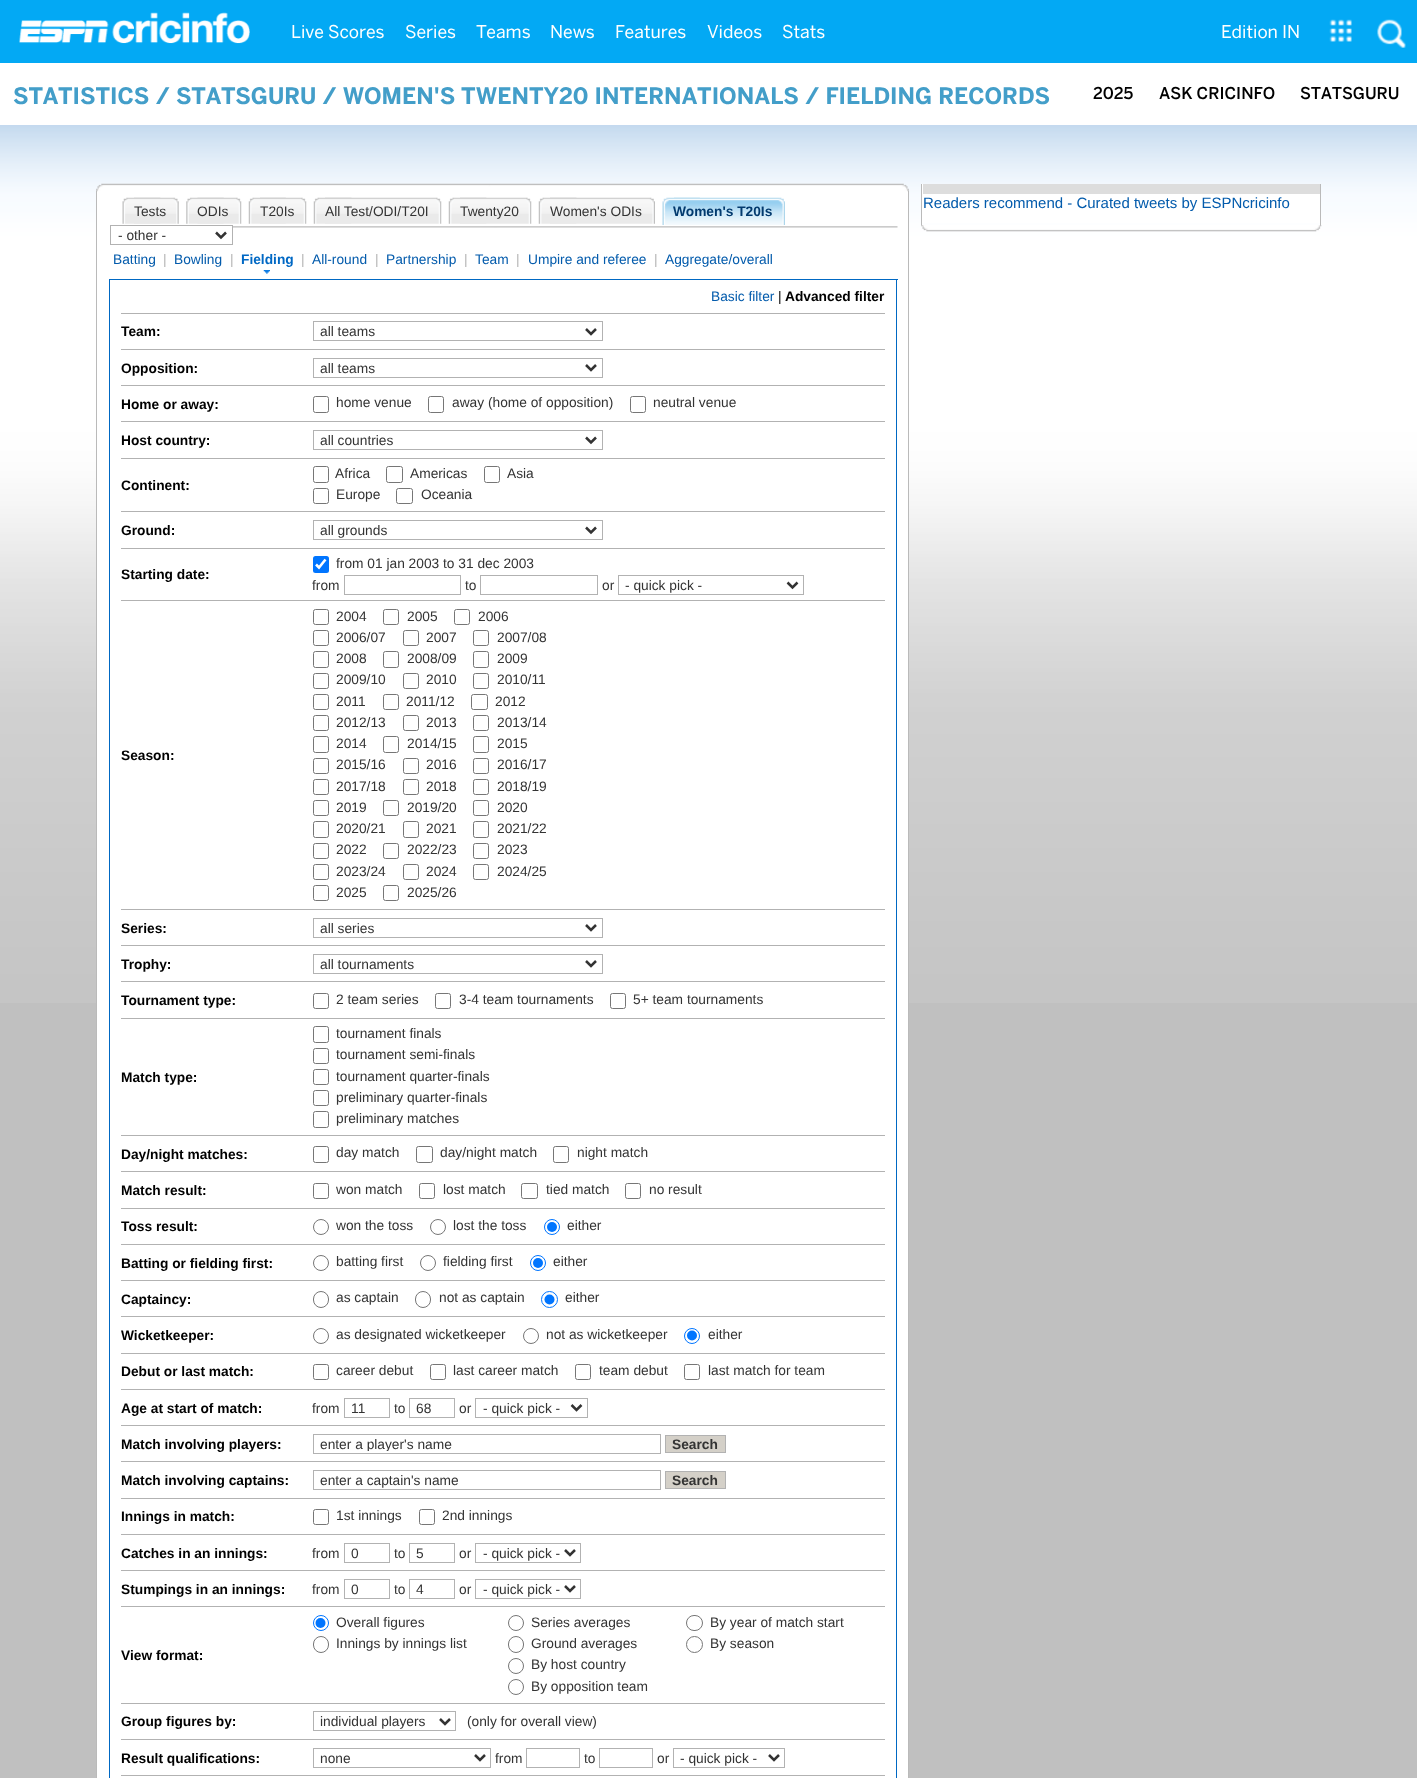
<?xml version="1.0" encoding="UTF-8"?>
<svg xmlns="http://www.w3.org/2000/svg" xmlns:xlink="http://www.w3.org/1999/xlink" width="1417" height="1778">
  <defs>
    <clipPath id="clip1"><rect x="320" y="1436" width="336" height="15" /></clipPath>
  </defs>
  <rect width="100%" height="100%" fill="#c0c0c0" />
  <image x="0" y="125" width="1417" height="878" xlink:href="image1.png" />
  <rect width="1417" height="63" fill="#03a9f4" />
  <image x="19" y="12" width="231" height="32" xlink:href="image2.png" />
  <image x="1329" y="19" width="23" height="23" xlink:href="image3.png" />
  <image x="1377" y="19" width="29" height="29" xlink:href="image4.png" />
  <rect y="63" width="1417" height="62" fill="#ffffff" />
  <rect x="922" y="184" width="398" height="39" fill="#ffffff" />
  <rect x="1320" y="184" width="1" height="41" fill="#bababa" />
  <rect x="921" y="184" width="1" height="41" fill="#bababa" />
  <rect x="923" y="184" width="397" height="10" fill="#dddddd" />
  <image x="921" y="225" width="401" height="7" xlink:href="image5.png" />
  <rect x="97" y="191" width="811" height="1587" fill="#ffffff" />
  <rect x="908" y="191" width="1" height="1587" fill="#bababa" />
  <rect x="96" y="191" width="1" height="1587" fill="#bababa" />
  <image x="96" y="183" width="813" height="9" xlink:href="image6.png" />
  <image x="233" y="226" width="665" height="2" xlink:href="image7.png" />
  <image x="122" y="197" width="39" height="27" xlink:href="image8.png" />
  <image x="134" y="197" width="45" height="27" xlink:href="image9.png" />
  <image x="186" y="197" width="38" height="27" xlink:href="image10.png" />
  <image x="197" y="197" width="45" height="27" xlink:href="image11.png" />
  <image x="248" y="197" width="38" height="27" xlink:href="image12.png" />
  <image x="260" y="197" width="47" height="27" xlink:href="image13.png" />
  <image x="313" y="197" width="39" height="27" xlink:href="image14.png" />
  <image x="325" y="197" width="117" height="27" xlink:href="image15.png" />
  <image x="448" y="197" width="39" height="27" xlink:href="image16.png" />
  <image x="460" y="197" width="72" height="27" xlink:href="image17.png" />
  <image x="538" y="197" width="39" height="27" xlink:href="image18.png" />
  <image x="550" y="197" width="105" height="27" xlink:href="image19.png" />
  <image x="662" y="197" width="38" height="28" xlink:href="image20.png" />
  <image x="674" y="197" width="111" height="28" xlink:href="image21.png" />
  <rect x="110.5" y="225.5" width="122" height="19" fill="none" stroke="#b2b2b2" />
  <path d="M 216 232.5 l 5 5 l 5 -5" fill="none" stroke="#333333" stroke-width="2.5" />
  <image x="263" y="270" width="7" height="4" xlink:href="image22.png" />
  <rect x="109" y="279" width="789" height="1" fill="#0068c3" />
  <rect x="896" y="279" width="1" height="1499" fill="#0068c3" />
  <rect x="109" y="279" width="1" height="1499" fill="#0068c3" />
  <rect x="121" y="313" width="764" height="1" fill="#b2b2b2" />
  <rect x="121" y="349" width="764" height="1" fill="#b2b2b2" />
  <rect x="313.5" y="321.5" width="289" height="19" fill="none" stroke="#b2b2b2" />
  <path d="M 586 329 l 5 5 l 5 -5" fill="none" stroke="#333333" stroke-width="2.5" />
  <rect x="121" y="385" width="764" height="1" fill="#b2b2b2" />
  <rect x="313.5" y="358.5" width="289" height="19" fill="none" stroke="#b2b2b2" />
  <path d="M 586 365 l 5 5 l 5 -5" fill="none" stroke="#333333" stroke-width="2.5" />
  <rect x="121" y="421" width="764" height="1" fill="#b2b2b2" />
  <rect x="313.5" y="396.5" width="15" height="16" rx="2" fill="none" stroke="#767676" />
  <rect x="428.5" y="396.5" width="15" height="16" rx="2" fill="none" stroke="#767676" />
  <rect x="630.5" y="396.5" width="15" height="16" rx="2" fill="none" stroke="#767676" />
  <rect x="121" y="458" width="764" height="1" fill="#b2b2b2" />
  <rect x="313.5" y="430.5" width="289" height="19" fill="none" stroke="#b2b2b2" />
  <path d="M 586 437.5 l 5 5 l 5 -5" fill="none" stroke="#333333" stroke-width="2.5" />
  <rect x="121" y="511" width="764" height="1" fill="#b2b2b2" />
  <rect x="313.5" y="466.5" width="15" height="16" rx="2" fill="none" stroke="#767676" />
  <rect x="386.5" y="466.5" width="16" height="16" rx="2" fill="none" stroke="#767676" />
  <rect x="484.5" y="466.5" width="15" height="16" rx="2" fill="none" stroke="#767676" />
  <rect x="313.5" y="488.5" width="15" height="15" rx="2" fill="none" stroke="#767676" />
  <rect x="396.5" y="488.5" width="16" height="15" rx="2" fill="none" stroke="#767676" />
  <rect x="121" y="548" width="764" height="1" fill="#b2b2b2" />
  <rect x="313.5" y="520.5" width="289" height="19" fill="none" stroke="#b2b2b2" />
  <path d="M 586 527.5 l 5 5 l 5 -5" fill="none" stroke="#333333" stroke-width="2.5" />
  <rect x="121" y="600" width="764" height="1" fill="#b2b2b2" />
  <rect x="313" y="556" width="16" height="17" rx="2.5" fill="#0075ff" />
  <path d="M 316 564.5 l 3 3 l 6.5 -8" fill="none" stroke="#ffffff" stroke-width="2.6" />
  <rect x="344.5" y="575.5" width="116" height="19" fill="none" stroke="#b2b2b2" />
  <rect x="480.5" y="575.5" width="117" height="19" fill="none" stroke="#b2b2b2" />
  <rect x="618.5" y="575.5" width="185" height="19" fill="none" stroke="#b2b2b2" />
  <path d="M 787.5 582.5 l 5 5 l 5 -5" fill="none" stroke="#333333" stroke-width="2.5" />
  <rect x="121" y="909" width="764" height="1" fill="#b2b2b2" />
  <rect x="313.5" y="609.5" width="15" height="15" rx="2" fill="none" stroke="#767676" />
  <rect x="383.5" y="609.5" width="15" height="15" rx="2" fill="none" stroke="#767676" />
  <rect x="454.5" y="609.5" width="15" height="15" rx="2" fill="none" stroke="#767676" />
  <rect x="313.5" y="630.5" width="15" height="15" rx="2" fill="none" stroke="#767676" />
  <rect x="403.5" y="630.5" width="15" height="15" rx="2" fill="none" stroke="#767676" />
  <rect x="473.5" y="630.5" width="15" height="15" rx="2" fill="none" stroke="#767676" />
  <rect x="313.5" y="651.5" width="15" height="16" rx="2" fill="none" stroke="#767676" />
  <rect x="383.5" y="651.5" width="15" height="16" rx="2" fill="none" stroke="#767676" />
  <rect x="473.5" y="651.5" width="15" height="16" rx="2" fill="none" stroke="#767676" />
  <rect x="313.5" y="673.5" width="15" height="15" rx="2" fill="none" stroke="#767676" />
  <rect x="403.5" y="673.5" width="15" height="15" rx="2" fill="none" stroke="#767676" />
  <rect x="473.5" y="673.5" width="15" height="15" rx="2" fill="none" stroke="#767676" />
  <rect x="313.5" y="694.5" width="15" height="15" rx="2" fill="none" stroke="#767676" />
  <rect x="383.5" y="694.5" width="15" height="15" rx="2" fill="none" stroke="#767676" />
  <rect x="471.5" y="694.5" width="16" height="15" rx="2" fill="none" stroke="#767676" />
  <rect x="313.5" y="715.5" width="15" height="15" rx="2" fill="none" stroke="#767676" />
  <rect x="403.5" y="715.5" width="15" height="15" rx="2" fill="none" stroke="#767676" />
  <rect x="473.5" y="715.5" width="15" height="15" rx="2" fill="none" stroke="#767676" />
  <rect x="313.5" y="736.5" width="15" height="16" rx="2" fill="none" stroke="#767676" />
  <rect x="383.5" y="736.5" width="15" height="16" rx="2" fill="none" stroke="#767676" />
  <rect x="473.5" y="736.5" width="15" height="16" rx="2" fill="none" stroke="#767676" />
  <rect x="313.5" y="758.5" width="15" height="15" rx="2" fill="none" stroke="#767676" />
  <rect x="403.5" y="758.5" width="15" height="15" rx="2" fill="none" stroke="#767676" />
  <rect x="473.5" y="758.5" width="15" height="15" rx="2" fill="none" stroke="#767676" />
  <rect x="313.5" y="779.5" width="15" height="15" rx="2" fill="none" stroke="#767676" />
  <rect x="403.5" y="779.5" width="15" height="15" rx="2" fill="none" stroke="#767676" />
  <rect x="473.5" y="779.5" width="15" height="15" rx="2" fill="none" stroke="#767676" />
  <rect x="313.5" y="800.5" width="15" height="15" rx="2" fill="none" stroke="#767676" />
  <rect x="383.5" y="800.5" width="15" height="15" rx="2" fill="none" stroke="#767676" />
  <rect x="473.5" y="800.5" width="15" height="15" rx="2" fill="none" stroke="#767676" />
  <rect x="313.5" y="821.5" width="15" height="16" rx="2" fill="none" stroke="#767676" />
  <rect x="403.5" y="821.5" width="15" height="16" rx="2" fill="none" stroke="#767676" />
  <rect x="473.5" y="821.5" width="15" height="16" rx="2" fill="none" stroke="#767676" />
  <rect x="313.5" y="843.5" width="15" height="15" rx="2" fill="none" stroke="#767676" />
  <rect x="383.5" y="843.5" width="15" height="15" rx="2" fill="none" stroke="#767676" />
  <rect x="473.5" y="843.5" width="15" height="15" rx="2" fill="none" stroke="#767676" />
  <rect x="313.5" y="864.5" width="15" height="15" rx="2" fill="none" stroke="#767676" />
  <rect x="403.5" y="864.5" width="15" height="15" rx="2" fill="none" stroke="#767676" />
  <rect x="473.5" y="864.5" width="15" height="15" rx="2" fill="none" stroke="#767676" />
  <rect x="313.5" y="885.5" width="15" height="15" rx="2" fill="none" stroke="#767676" />
  <rect x="383.5" y="885.5" width="15" height="15" rx="2" fill="none" stroke="#767676" />
  <rect x="121" y="945" width="764" height="1" fill="#b2b2b2" />
  <rect x="313.5" y="918.5" width="289" height="19" fill="none" stroke="#b2b2b2" />
  <path d="M 586 925 l 5 5 l 5 -5" fill="none" stroke="#333333" stroke-width="2.5" />
  <rect x="121" y="981" width="764" height="1" fill="#b2b2b2" />
  <rect x="313.5" y="954.5" width="289" height="19" fill="none" stroke="#b2b2b2" />
  <path d="M 586 961 l 5 5 l 5 -5" fill="none" stroke="#333333" stroke-width="2.5" />
  <rect x="121" y="1018" width="764" height="1" fill="#b2b2b2" />
  <rect x="313.5" y="993.5" width="15" height="15" rx="2" fill="none" stroke="#767676" />
  <rect x="435.5" y="993.5" width="15" height="15" rx="2" fill="none" stroke="#767676" />
  <rect x="610.5" y="993.5" width="15" height="15" rx="2" fill="none" stroke="#767676" />
  <rect x="121" y="1135" width="764" height="1" fill="#b2b2b2" />
  <rect x="313.5" y="1026.5" width="15" height="16" rx="2" fill="none" stroke="#767676" />
  <rect x="313.5" y="1048.5" width="15" height="15" rx="2" fill="none" stroke="#767676" />
  <rect x="313.5" y="1069.5" width="15" height="15" rx="2" fill="none" stroke="#767676" />
  <rect x="313.5" y="1090.5" width="15" height="15" rx="2" fill="none" stroke="#767676" />
  <rect x="313.5" y="1111.5" width="15" height="16" rx="2" fill="none" stroke="#767676" />
  <rect x="121" y="1171" width="764" height="1" fill="#b2b2b2" />
  <rect x="313.5" y="1146.5" width="15" height="16" rx="2" fill="none" stroke="#767676" />
  <rect x="416.5" y="1146.5" width="16" height="16" rx="2" fill="none" stroke="#767676" />
  <rect x="553.5" y="1146.5" width="15" height="16" rx="2" fill="none" stroke="#767676" />
  <rect x="121" y="1208" width="764" height="1" fill="#b2b2b2" />
  <rect x="313.5" y="1183.5" width="15" height="15" rx="2" fill="none" stroke="#767676" />
  <rect x="419.5" y="1183.5" width="15" height="15" rx="2" fill="none" stroke="#767676" />
  <rect x="521.5" y="1183.5" width="16" height="15" rx="2" fill="none" stroke="#767676" />
  <rect x="625.5" y="1183.5" width="15" height="15" rx="2" fill="none" stroke="#767676" />
  <rect x="121" y="1244" width="764" height="1" fill="#b2b2b2" />
  <circle cx="321" cy="1227" r="7.5" fill="none" stroke="#767676" />
  <circle cx="438" cy="1227" r="7.5" fill="none" stroke="#767676" />
  <circle cx="552" cy="1227" r="7.5" fill="none" stroke="#0075ff" />
  <circle cx="552" cy="1227" r="5" fill="#0075ff" />
  <rect x="121" y="1280" width="764" height="1" fill="#b2b2b2" />
  <circle cx="321" cy="1263" r="7.5" fill="none" stroke="#767676" />
  <circle cx="428" cy="1263" r="7.5" fill="none" stroke="#767676" />
  <circle cx="538" cy="1263" r="7.5" fill="none" stroke="#0075ff" />
  <circle cx="538" cy="1263" r="5" fill="#0075ff" />
  <rect x="121" y="1316" width="764" height="1" fill="#b2b2b2" />
  <rect x="313.5" y="1291.5" width="15" height="16" rx="7.5" fill="none" stroke="#767676" />
  <rect x="415.5" y="1291.5" width="15" height="16" rx="7.5" fill="none" stroke="#767676" />
  <circle cx="549.5" cy="1299.5" r="8" fill="none" stroke="#0075ff" />
  <circle cx="549.5" cy="1299.5" r="5" fill="#0075ff" />
  <rect x="121" y="1353" width="764" height="1" fill="#b2b2b2" />
  <circle cx="321" cy="1336" r="7.5" fill="none" stroke="#767676" />
  <circle cx="531" cy="1336" r="7.5" fill="none" stroke="#767676" />
  <circle cx="692" cy="1336" r="7.5" fill="none" stroke="#0075ff" />
  <circle cx="692" cy="1335.5" r="5" fill="#0075ff" />
  <rect x="121" y="1389" width="764" height="1" fill="#b2b2b2" />
  <rect x="313.5" y="1364.5" width="15" height="15" rx="2" fill="none" stroke="#767676" />
  <rect x="430.5" y="1364.5" width="15" height="15" rx="2" fill="none" stroke="#767676" />
  <rect x="575.5" y="1364.5" width="15" height="15" rx="2" fill="none" stroke="#767676" />
  <rect x="684.5" y="1364.5" width="15" height="15" rx="2" fill="none" stroke="#767676" />
  <rect x="121" y="1425" width="764" height="1" fill="#b2b2b2" />
  <rect x="344.5" y="1398.5" width="45" height="19" fill="none" stroke="#b2b2b2" />
  <rect x="409.5" y="1398.5" width="45" height="19" fill="none" stroke="#b2b2b2" />
  <rect x="475.5" y="1398.5" width="112" height="19" fill="none" stroke="#b2b2b2" />
  <path d="M 571.5 1405 l 5 5 l 5 -5" fill="none" stroke="#333333" stroke-width="2.5" />
  <rect x="121" y="1461" width="764" height="1" fill="#b2b2b2" />
  <rect x="313.5" y="1434.5" width="347" height="19" fill="none" stroke="#b2b2b2" />
  <rect x="665.5" y="1435.5" width="60" height="17" fill="#d4d0c8" stroke="#b2b2b2" />
  <rect x="121" y="1498" width="764" height="1" fill="#b2b2b2" />
  <rect x="313.5" y="1470.5" width="347" height="19" fill="none" stroke="#b2b2b2" />
  <rect x="665.5" y="1471.5" width="60" height="17" fill="#d4d0c8" stroke="#b2b2b2" />
  <rect x="121" y="1534" width="764" height="1" fill="#b2b2b2" />
  <rect x="313.5" y="1509.5" width="15" height="15" rx="2" fill="none" stroke="#767676" />
  <rect x="419.5" y="1509.5" width="15" height="15" rx="2" fill="none" stroke="#767676" />
  <rect x="121" y="1570" width="764" height="1" fill="#b2b2b2" />
  <rect x="344.5" y="1543.5" width="45" height="19" fill="none" stroke="#b2b2b2" />
  <rect x="409.5" y="1543.5" width="45" height="19" fill="none" stroke="#b2b2b2" />
  <rect x="475.5" y="1543.5" width="105" height="19" fill="none" stroke="#b2b2b2" />
  <path d="M 565 1550 l 5 5 l 5 -5" fill="none" stroke="#333333" stroke-width="2.5" />
  <rect x="121" y="1606" width="764" height="1" fill="#b2b2b2" />
  <rect x="344.5" y="1579.5" width="45" height="19" fill="none" stroke="#b2b2b2" />
  <rect x="409.5" y="1579.5" width="45" height="19" fill="none" stroke="#b2b2b2" />
  <rect x="475.5" y="1579.5" width="105" height="19" fill="none" stroke="#b2b2b2" />
  <path d="M 565 1586 l 5 5 l 5 -5" fill="none" stroke="#333333" stroke-width="2.5" />
  <rect x="121" y="1703" width="764" height="1" fill="#b2b2b2" />
  <circle cx="321" cy="1623" r="7.5" fill="none" stroke="#0075ff" />
  <circle cx="320.5" cy="1623" r="5" fill="#0075ff" />
  <rect x="313.5" y="1636.5" width="15" height="16" rx="7.5" fill="none" stroke="#767676" />
  <circle cx="516" cy="1623" r="7.5" fill="none" stroke="#767676" />
  <rect x="508.5" y="1636.5" width="15" height="16" rx="7.5" fill="none" stroke="#767676" />
  <circle cx="516" cy="1666" r="7.5" fill="none" stroke="#767676" />
  <circle cx="516" cy="1687" r="7.5" fill="none" stroke="#767676" />
  <rect x="686.5" y="1615.5" width="16" height="15" rx="7.5" fill="none" stroke="#767676" />
  <circle cx="694.5" cy="1644.5" r="8" fill="none" stroke="#767676" />
  <rect x="121" y="1739" width="764" height="1" fill="#b2b2b2" />
  <rect x="313.5" y="1711.5" width="142" height="19" fill="none" stroke="#b2b2b2" />
  <path d="M 440 1719 l 5 5 l 5 -5" fill="none" stroke="#333333" stroke-width="2.5" />
  <rect x="121" y="1775" width="764" height="1" fill="#b2b2b2" />
  <rect x="313.5" y="1748.5" width="177" height="19" fill="none" stroke="#b2b2b2" />
  <path d="M 475 1755 l 5 5 l 5 -5" fill="none" stroke="#333333" stroke-width="2.5" />
  <rect x="526.5" y="1748.5" width="53" height="19" fill="none" stroke="#b2b2b2" />
  <rect x="599.5" y="1748.5" width="53" height="19" fill="none" stroke="#b2b2b2" />
  <rect x="673.5" y="1748.5" width="111" height="19" fill="none" stroke="#b2b2b2" />
  <path d="M 769 1755 l 5 5 l 5 -5" fill="none" stroke="#333333" stroke-width="2.5" />
  <text x="291" y="38" style="font-family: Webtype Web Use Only; font-size: 17.5px; fill: #ffffff">Live Scores</text>
  <text x="405" y="38" style="font-family: Webtype Web Use Only; font-size: 17.5px; fill: #ffffff">Series</text>
  <text x="476" y="38" style="font-family: Webtype Web Use Only; font-size: 17.5px; fill: #ffffff">Teams</text>
  <text x="550" y="38" style="font-family: Webtype Web Use Only; font-size: 17.5px; fill: #ffffff">News</text>
  <text x="615" y="38" style="font-family: Webtype Web Use Only; font-size: 17.5px; fill: #ffffff">Features</text>
  <text x="707" y="38" style="font-family: Webtype Web Use Only; font-size: 17.5px; fill: #ffffff">Videos</text>
  <text x="782" y="38" style="font-family: Webtype Web Use Only; font-size: 17.5px; fill: #ffffff">Stats</text>
  <text x="1221" y="38" style="font-family: Webtype Web Use Only; font-size: 17.5px; fill: #ffffff">Edition IN</text>
  <text x="13" y="104" style="font-family: Webtype Web Use Only; font-size: 22.5px; font-weight: bold; fill: #439ec9">STATISTICS / STATSGURU / WOMEN'S TWENTY20 INTERNATIONALS / FIELDING RECORDS</text>
  <text x="1093" y="99" style="font-family: Webtype Web Use Only; font-size: 16.25px; font-weight: 500; fill: #000000">2025</text>
  <text x="1159" y="99" style="font-family: Webtype Web Use Only; font-size: 16.25px; font-weight: 500; fill: #000000">ASK CRICINFO</text>
  <text x="1300" y="99" style="font-family: Webtype Web Use Only; font-size: 16.25px; font-weight: 500; fill: #000000">STATSGURU</text>
  <text x="923" y="208" style="font-family: Liberation Sans; font-size: 15px; fill: #035bac">Readers recommend - Curated tweets by ESPNcricinfo</text>
  <text x="134" y="216" style="font-family: Liberation Sans; font-size: 13.75px; fill: #333333">Tests</text>
  <text x="197" y="216" style="font-family: Liberation Sans; font-size: 13.75px; fill: #333333">ODIs</text>
  <text x="260" y="216" style="font-family: Liberation Sans; font-size: 13.75px; fill: #333333">T20Is</text>
  <text x="325" y="216" style="font-family: Liberation Sans; font-size: 13.75px; fill: #333333">All Test/ODI/T20I</text>
  <text x="460" y="216" style="font-family: Liberation Sans; font-size: 13.75px; fill: #333333">Twenty20</text>
  <text x="550" y="216" style="font-family: Liberation Sans; font-size: 13.75px; fill: #333333">Women's ODIs</text>
  <text x="673" y="216" style="font-family: Liberation Sans; font-size: 13.75px; font-weight: bold; fill: #023a6e">Women's T20Is</text>
  <text x="118" y="240" style="font-family: Liberation Sans; font-size: 13.75px; fill: #333333">- other -</text>
  <text x="113" y="264" style="font-family: Liberation Sans; font-size: 13.75px; fill: #035bac">Batting</text>
  <text x="163" y="264" style="font-family: Liberation Sans; font-size: 13.75px; fill: #b4b4b4">|</text>
  <text x="174" y="264" style="font-family: Liberation Sans; font-size: 13.75px; fill: #035bac">Bowling</text>
  <text x="230" y="264" style="font-family: Liberation Sans; font-size: 13.75px; fill: #b4b4b4">|</text>
  <text x="241" y="264" style="font-family: Liberation Sans; font-size: 13.75px; font-weight: bold; fill: #0068c4">Fielding</text>
  <text x="301" y="264" style="font-family: Liberation Sans; font-size: 13.75px; fill: #b4b4b4">|</text>
  <text x="312" y="264" style="font-family: Liberation Sans; font-size: 13.75px; fill: #035bac">All-round</text>
  <text x="375" y="264" style="font-family: Liberation Sans; font-size: 13.75px; fill: #b4b4b4">|</text>
  <text x="386" y="264" style="font-family: Liberation Sans; font-size: 13.75px; fill: #035bac">Partnership</text>
  <text x="464" y="264" style="font-family: Liberation Sans; font-size: 13.75px; fill: #b4b4b4">|</text>
  <text x="475" y="264" style="font-family: Liberation Sans; font-size: 13.75px; fill: #035bac">Team</text>
  <text x="516" y="264" style="font-family: Liberation Sans; font-size: 13.75px; fill: #b4b4b4">|</text>
  <text x="528" y="264" style="font-family: Liberation Sans; font-size: 13.75px; fill: #035bac">Umpire and referee</text>
  <text x="654" y="264" style="font-family: Liberation Sans; font-size: 13.75px; fill: #b4b4b4">|</text>
  <text x="665" y="264" style="font-family: Liberation Sans; font-size: 13.75px; fill: #035bac">Aggregate/overall</text>
  <text x="711" y="301" style="font-family: Liberation Sans; font-size: 13.75px; fill: #035bac">Basic filter</text>
  <text x="778" y="301" style="font-family: Liberation Sans; font-size: 13.75px; fill: #000000">|</text>
  <text x="785" y="301" style="font-family: Liberation Sans; font-size: 13.75px; font-weight: bold; fill: #000000">Advanced filter</text>
  <text x="121" y="336" style="font-family: Liberation Sans; font-size: 13.75px; font-weight: bold; fill: #000000">Team:</text>
  <text x="320" y="336" style="font-family: Liberation Sans; font-size: 13.75px; fill: #333333">all teams</text>
  <text x="121" y="373" style="font-family: Liberation Sans; font-size: 13.75px; font-weight: bold; fill: #000000">Opposition:</text>
  <text x="320" y="373" style="font-family: Liberation Sans; font-size: 13.75px; fill: #333333">all teams</text>
  <text x="121" y="409" style="font-family: Liberation Sans; font-size: 13.75px; font-weight: bold; fill: #000000">Home or away:</text>
  <text x="336" y="407" style="font-family: Liberation Sans; font-size: 13.75px; fill: #333333">home venue</text>
  <text x="452" y="407" style="font-family: Liberation Sans; font-size: 13.75px; fill: #333333">away (home of opposition)</text>
  <text x="653" y="407" style="font-family: Liberation Sans; font-size: 13.75px; fill: #333333">neutral venue</text>
  <text x="121" y="445" style="font-family: Liberation Sans; font-size: 13.75px; font-weight: bold; fill: #000000">Host country:</text>
  <text x="320" y="445" style="font-family: Liberation Sans; font-size: 13.75px; fill: #333333">all countries</text>
  <text x="121" y="490" style="font-family: Liberation Sans; font-size: 13.75px; font-weight: bold; fill: #000000">Continent:</text>
  <text x="335" y="478" style="font-family: Liberation Sans; font-size: 13.75px; fill: #333333">Africa</text>
  <text x="410" y="478" style="font-family: Liberation Sans; font-size: 13.75px; fill: #333333">Americas</text>
  <text x="507" y="478" style="font-family: Liberation Sans; font-size: 13.75px; fill: #333333">Asia</text>
  <text x="336" y="499" style="font-family: Liberation Sans; font-size: 13.75px; fill: #333333">Europe</text>
  <text x="421" y="499" style="font-family: Liberation Sans; font-size: 13.75px; fill: #333333">Oceania</text>
  <text x="121" y="535" style="font-family: Liberation Sans; font-size: 13.75px; font-weight: bold; fill: #000000">Ground:</text>
  <text x="320" y="535" style="font-family: Liberation Sans; font-size: 13.75px; fill: #333333">all grounds</text>
  <text x="121" y="579" style="font-family: Liberation Sans; font-size: 13.75px; font-weight: bold; fill: #000000">Starting date:</text>
  <text x="336" y="568" style="font-family: Liberation Sans; font-size: 13.75px; fill: #333333">from 01 jan 2003 to 31 dec 2003</text>
  <text x="312" y="590" style="font-family: Liberation Sans; font-size: 13.75px; fill: #333333">from</text>
  <text x="465" y="590" style="font-family: Liberation Sans; font-size: 13.75px; fill: #333333">to</text>
  <text x="602" y="590" style="font-family: Liberation Sans; font-size: 13.75px; fill: #333333">or</text>
  <text x="625" y="590" style="font-family: Liberation Sans; font-size: 13.75px; fill: #333333">- quick pick -</text>
  <text x="121" y="760" style="font-family: Liberation Sans; font-size: 13.75px; font-weight: bold; fill: #000000">Season:</text>
  <text x="336" y="621" style="font-family: Liberation Sans; font-size: 13.75px; fill: #333333">2004</text>
  <text x="407" y="621" style="font-family: Liberation Sans; font-size: 13.75px; fill: #333333">2005</text>
  <text x="478" y="621" style="font-family: Liberation Sans; font-size: 13.75px; fill: #333333">2006</text>
  <text x="336" y="642" style="font-family: Liberation Sans; font-size: 13.75px; fill: #333333">2006/07</text>
  <text x="426" y="642" style="font-family: Liberation Sans; font-size: 13.75px; fill: #333333">2007</text>
  <text x="497" y="642" style="font-family: Liberation Sans; font-size: 13.75px; fill: #333333">2007/08</text>
  <text x="336" y="663" style="font-family: Liberation Sans; font-size: 13.75px; fill: #333333">2008</text>
  <text x="407" y="663" style="font-family: Liberation Sans; font-size: 13.75px; fill: #333333">2008/09</text>
  <text x="497" y="663" style="font-family: Liberation Sans; font-size: 13.75px; fill: #333333">2009</text>
  <text x="336" y="684" style="font-family: Liberation Sans; font-size: 13.75px; fill: #333333">2009/10</text>
  <text x="426" y="684" style="font-family: Liberation Sans; font-size: 13.75px; fill: #333333">2010</text>
  <text x="497" y="684" style="font-family: Liberation Sans; font-size: 13.75px; fill: #333333">2010/11</text>
  <text x="336" y="706" style="font-family: Liberation Sans; font-size: 13.75px; fill: #333333">2011</text>
  <text x="406" y="706" style="font-family: Liberation Sans; font-size: 13.75px; fill: #333333">2011/12</text>
  <text x="495" y="706" style="font-family: Liberation Sans; font-size: 13.75px; fill: #333333">2012</text>
  <text x="336" y="727" style="font-family: Liberation Sans; font-size: 13.75px; fill: #333333">2012/13</text>
  <text x="426" y="727" style="font-family: Liberation Sans; font-size: 13.75px; fill: #333333">2013</text>
  <text x="497" y="727" style="font-family: Liberation Sans; font-size: 13.75px; fill: #333333">2013/14</text>
  <text x="336" y="748" style="font-family: Liberation Sans; font-size: 13.75px; fill: #333333">2014</text>
  <text x="407" y="748" style="font-family: Liberation Sans; font-size: 13.75px; fill: #333333">2014/15</text>
  <text x="497" y="748" style="font-family: Liberation Sans; font-size: 13.75px; fill: #333333">2015</text>
  <text x="336" y="769" style="font-family: Liberation Sans; font-size: 13.75px; fill: #333333">2015/16</text>
  <text x="426" y="769" style="font-family: Liberation Sans; font-size: 13.75px; fill: #333333">2016</text>
  <text x="497" y="769" style="font-family: Liberation Sans; font-size: 13.75px; fill: #333333">2016/17</text>
  <text x="336" y="791" style="font-family: Liberation Sans; font-size: 13.75px; fill: #333333">2017/18</text>
  <text x="426" y="791" style="font-family: Liberation Sans; font-size: 13.75px; fill: #333333">2018</text>
  <text x="497" y="791" style="font-family: Liberation Sans; font-size: 13.75px; fill: #333333">2018/19</text>
  <text x="336" y="812" style="font-family: Liberation Sans; font-size: 13.75px; fill: #333333">2019</text>
  <text x="407" y="812" style="font-family: Liberation Sans; font-size: 13.75px; fill: #333333">2019/20</text>
  <text x="497" y="812" style="font-family: Liberation Sans; font-size: 13.75px; fill: #333333">2020</text>
  <text x="336" y="833" style="font-family: Liberation Sans; font-size: 13.75px; fill: #333333">2020/21</text>
  <text x="426" y="833" style="font-family: Liberation Sans; font-size: 13.75px; fill: #333333">2021</text>
  <text x="497" y="833" style="font-family: Liberation Sans; font-size: 13.75px; fill: #333333">2021/22</text>
  <text x="336" y="854" style="font-family: Liberation Sans; font-size: 13.75px; fill: #333333">2022</text>
  <text x="407" y="854" style="font-family: Liberation Sans; font-size: 13.75px; fill: #333333">2022/23</text>
  <text x="497" y="854" style="font-family: Liberation Sans; font-size: 13.75px; fill: #333333">2023</text>
  <text x="336" y="876" style="font-family: Liberation Sans; font-size: 13.75px; fill: #333333">2023/24</text>
  <text x="426" y="876" style="font-family: Liberation Sans; font-size: 13.75px; fill: #333333">2024</text>
  <text x="497" y="876" style="font-family: Liberation Sans; font-size: 13.75px; fill: #333333">2024/25</text>
  <text x="336" y="897" style="font-family: Liberation Sans; font-size: 13.75px; fill: #333333">2025</text>
  <text x="407" y="897" style="font-family: Liberation Sans; font-size: 13.75px; fill: #333333">2025/26</text>
  <text x="121" y="933" style="font-family: Liberation Sans; font-size: 13.75px; font-weight: bold; fill: #000000">Series:</text>
  <text x="320" y="933" style="font-family: Liberation Sans; font-size: 13.75px; fill: #333333">all series</text>
  <text x="121" y="969" style="font-family: Liberation Sans; font-size: 13.75px; font-weight: bold; fill: #000000">Trophy:</text>
  <text x="320" y="969" style="font-family: Liberation Sans; font-size: 13.75px; fill: #333333">all tournaments</text>
  <text x="121" y="1005" style="font-family: Liberation Sans; font-size: 13.75px; font-weight: bold; fill: #000000">Tournament type:</text>
  <text x="336" y="1004" style="font-family: Liberation Sans; font-size: 13.75px; fill: #333333">2 team series</text>
  <text x="459" y="1004" style="font-family: Liberation Sans; font-size: 13.75px; fill: #333333">3-4 team tournaments</text>
  <text x="633" y="1004" style="font-family: Liberation Sans; font-size: 13.75px; fill: #333333">5+ team tournaments</text>
  <text x="121" y="1082" style="font-family: Liberation Sans; font-size: 13.75px; font-weight: bold; fill: #000000">Match type:</text>
  <text x="336" y="1038" style="font-family: Liberation Sans; font-size: 13.75px; fill: #333333">tournament finals</text>
  <text x="336" y="1059" style="font-family: Liberation Sans; font-size: 13.75px; fill: #333333">tournament semi-finals</text>
  <text x="336" y="1081" style="font-family: Liberation Sans; font-size: 13.75px; fill: #333333">tournament quarter-finals</text>
  <text x="336" y="1102" style="font-family: Liberation Sans; font-size: 13.75px; fill: #333333">preliminary quarter-finals</text>
  <text x="336" y="1123" style="font-family: Liberation Sans; font-size: 13.75px; fill: #333333">preliminary matches</text>
  <text x="121" y="1159" style="font-family: Liberation Sans; font-size: 13.75px; font-weight: bold; fill: #000000">Day/night matches:</text>
  <text x="336" y="1157" style="font-family: Liberation Sans; font-size: 13.75px; fill: #333333">day match</text>
  <text x="440" y="1157" style="font-family: Liberation Sans; font-size: 13.75px; fill: #333333">day/night match</text>
  <text x="577" y="1157" style="font-family: Liberation Sans; font-size: 13.75px; fill: #333333">night match</text>
  <text x="121" y="1195" style="font-family: Liberation Sans; font-size: 13.75px; font-weight: bold; fill: #000000">Match result:</text>
  <text x="336" y="1194" style="font-family: Liberation Sans; font-size: 13.75px; fill: #333333">won match</text>
  <text x="443" y="1194" style="font-family: Liberation Sans; font-size: 13.75px; fill: #333333">lost match</text>
  <text x="546" y="1194" style="font-family: Liberation Sans; font-size: 13.75px; fill: #333333">tied match</text>
  <text x="649" y="1194" style="font-family: Liberation Sans; font-size: 13.75px; fill: #333333">no result</text>
  <text x="121" y="1231" style="font-family: Liberation Sans; font-size: 13.75px; font-weight: bold; fill: #000000">Toss result:</text>
  <text x="336" y="1230" style="font-family: Liberation Sans; font-size: 13.75px; fill: #333333">won the toss</text>
  <text x="453" y="1230" style="font-family: Liberation Sans; font-size: 13.75px; fill: #333333">lost the toss</text>
  <text x="567" y="1230" style="font-family: Liberation Sans; font-size: 13.75px; fill: #333333">either</text>
  <text x="121" y="1268" style="font-family: Liberation Sans; font-size: 13.75px; font-weight: bold; fill: #000000">Batting or fielding first:</text>
  <text x="336" y="1266" style="font-family: Liberation Sans; font-size: 13.75px; fill: #333333">batting first</text>
  <text x="443" y="1266" style="font-family: Liberation Sans; font-size: 13.75px; fill: #333333">fielding first</text>
  <text x="553" y="1266" style="font-family: Liberation Sans; font-size: 13.75px; fill: #333333">either</text>
  <text x="121" y="1304" style="font-family: Liberation Sans; font-size: 13.75px; font-weight: bold; fill: #000000">Captaincy:</text>
  <text x="336" y="1302" style="font-family: Liberation Sans; font-size: 13.75px; fill: #333333">as captain</text>
  <text x="439" y="1302" style="font-family: Liberation Sans; font-size: 13.75px; fill: #333333">not as captain</text>
  <text x="565" y="1302" style="font-family: Liberation Sans; font-size: 13.75px; fill: #333333">either</text>
  <text x="121" y="1340" style="font-family: Liberation Sans; font-size: 13.75px; font-weight: bold; fill: #000000">Wicketkeeper:</text>
  <text x="336" y="1339" style="font-family: Liberation Sans; font-size: 13.75px; fill: #333333">as designated wicketkeeper</text>
  <text x="546" y="1339" style="font-family: Liberation Sans; font-size: 13.75px; fill: #333333">not as wicketkeeper</text>
  <text x="708" y="1339" style="font-family: Liberation Sans; font-size: 13.75px; fill: #333333">either</text>
  <text x="121" y="1376" style="font-family: Liberation Sans; font-size: 13.75px; font-weight: bold; fill: #000000">Debut or last match:</text>
  <text x="336" y="1375" style="font-family: Liberation Sans; font-size: 13.75px; fill: #333333">career debut</text>
  <text x="453" y="1375" style="font-family: Liberation Sans; font-size: 13.75px; fill: #333333">last career match</text>
  <text x="599" y="1375" style="font-family: Liberation Sans; font-size: 13.75px; fill: #333333">team debut</text>
  <text x="708" y="1375" style="font-family: Liberation Sans; font-size: 13.75px; fill: #333333">last match for team</text>
  <text x="121" y="1413" style="font-family: Liberation Sans; font-size: 13.75px; font-weight: bold; fill: #000000">Age at start of match:</text>
  <text x="312" y="1413" style="font-family: Liberation Sans; font-size: 13.75px; fill: #333333">from</text>
  <text x="351" y="1413" style="font-family: Liberation Sans; font-size: 13.75px; fill: #333333">11</text>
  <text x="394" y="1413" style="font-family: Liberation Sans; font-size: 13.75px; fill: #333333">to</text>
  <text x="416" y="1413" style="font-family: Liberation Sans; font-size: 13.75px; fill: #333333">68</text>
  <text x="459" y="1413" style="font-family: Liberation Sans; font-size: 13.75px; fill: #333333">or</text>
  <text x="483" y="1413" style="font-family: Liberation Sans; font-size: 13.75px; fill: #333333">- quick pick -</text>
  <text x="121" y="1449" style="font-family: Liberation Sans; font-size: 13.75px; font-weight: bold; fill: #000000">Match involving players:</text>
  <g clip-path="url(#clip1)">
    <text x="320" y="1449" style="font-family: Liberation Sans; font-size: 13.75px; fill: #333333">enter a player's name</text>
  </g>
  <text x="672" y="1449" style="font-family: Liberation Sans; font-size: 13.75px; font-weight: bold; fill: #333333">Search</text>
  <text x="121" y="1485" style="font-family: Liberation Sans; font-size: 13.75px; font-weight: bold; fill: #000000">Match involving captains:</text>
  <text x="320" y="1485" style="font-family: Liberation Sans; font-size: 13.75px; fill: #333333">enter a captain's name</text>
  <text x="672" y="1485" style="font-family: Liberation Sans; font-size: 13.75px; font-weight: bold; fill: #333333">Search</text>
  <text x="121" y="1521" style="font-family: Liberation Sans; font-size: 13.75px; font-weight: bold; fill: #000000">Innings in match:</text>
  <text x="336" y="1520" style="font-family: Liberation Sans; font-size: 13.75px; fill: #333333">1st innings</text>
  <text x="442" y="1520" style="font-family: Liberation Sans; font-size: 13.75px; fill: #333333">2nd innings</text>
  <text x="121" y="1558" style="font-family: Liberation Sans; font-size: 13.75px; font-weight: bold; fill: #000000">Catches in an innings:</text>
  <text x="312" y="1558" style="font-family: Liberation Sans; font-size: 13.75px; fill: #333333">from</text>
  <text x="351" y="1558" style="font-family: Liberation Sans; font-size: 13.75px; fill: #333333">0</text>
  <text x="394" y="1558" style="font-family: Liberation Sans; font-size: 13.75px; fill: #333333">to</text>
  <text x="416" y="1558" style="font-family: Liberation Sans; font-size: 13.75px; fill: #333333">5</text>
  <text x="459" y="1558" style="font-family: Liberation Sans; font-size: 13.75px; fill: #333333">or</text>
  <text x="483" y="1558" style="font-family: Liberation Sans; font-size: 13.75px; fill: #333333">- quick pick -</text>
  <text x="121" y="1594" style="font-family: Liberation Sans; font-size: 13.75px; font-weight: bold; fill: #000000">Stumpings in an innings:</text>
  <text x="312" y="1594" style="font-family: Liberation Sans; font-size: 13.75px; fill: #333333">from</text>
  <text x="351" y="1594" style="font-family: Liberation Sans; font-size: 13.75px; fill: #333333">0</text>
  <text x="394" y="1594" style="font-family: Liberation Sans; font-size: 13.75px; fill: #333333">to</text>
  <text x="416" y="1594" style="font-family: Liberation Sans; font-size: 13.75px; fill: #333333">4</text>
  <text x="459" y="1594" style="font-family: Liberation Sans; font-size: 13.75px; fill: #333333">or</text>
  <text x="483" y="1594" style="font-family: Liberation Sans; font-size: 13.75px; fill: #333333">- quick pick -</text>
  <text x="121" y="1660" style="font-family: Liberation Sans; font-size: 13.75px; font-weight: bold; fill: #000000">View format:</text>
  <text x="336" y="1627" style="font-family: Liberation Sans; font-size: 13.75px; fill: #333333">Overall figures</text>
  <text x="336" y="1648" style="font-family: Liberation Sans; font-size: 13.75px; fill: #333333">Innings by innings list</text>
  <text x="531" y="1627" style="font-family: Liberation Sans; font-size: 13.75px; fill: #333333">Series averages</text>
  <text x="531" y="1648" style="font-family: Liberation Sans; font-size: 13.75px; fill: #333333">Ground averages</text>
  <text x="531" y="1669" style="font-family: Liberation Sans; font-size: 13.75px; fill: #333333">By host country</text>
  <text x="531" y="1691" style="font-family: Liberation Sans; font-size: 13.75px; fill: #333333">By opposition team</text>
  <text x="710" y="1627" style="font-family: Liberation Sans; font-size: 13.75px; fill: #333333">By year of match start</text>
  <text x="710" y="1648" style="font-family: Liberation Sans; font-size: 13.75px; fill: #333333">By season</text>
  <text x="121" y="1726" style="font-family: Liberation Sans; font-size: 13.75px; font-weight: bold; fill: #000000">Group figures by:</text>
  <text x="320" y="1726" style="font-family: Liberation Sans; font-size: 13.75px; fill: #333333">individual players</text>
  <text x="467" y="1726" style="font-family: Liberation Sans; font-size: 13.75px; fill: #333333">(only for overall view)</text>
  <text x="121" y="1763" style="font-family: Liberation Sans; font-size: 13.75px; font-weight: bold; fill: #000000">Result qualifications:</text>
  <text x="320" y="1763" style="font-family: Liberation Sans; font-size: 13.75px; fill: #333333">none</text>
  <text x="495" y="1763" style="font-family: Liberation Sans; font-size: 13.75px; fill: #333333">from</text>
  <text x="584" y="1763" style="font-family: Liberation Sans; font-size: 13.75px; fill: #333333">to</text>
  <text x="657" y="1763" style="font-family: Liberation Sans; font-size: 13.75px; fill: #333333">or</text>
  <text x="680" y="1763" style="font-family: Liberation Sans; font-size: 13.75px; fill: #333333">- quick pick -</text>
</svg>
